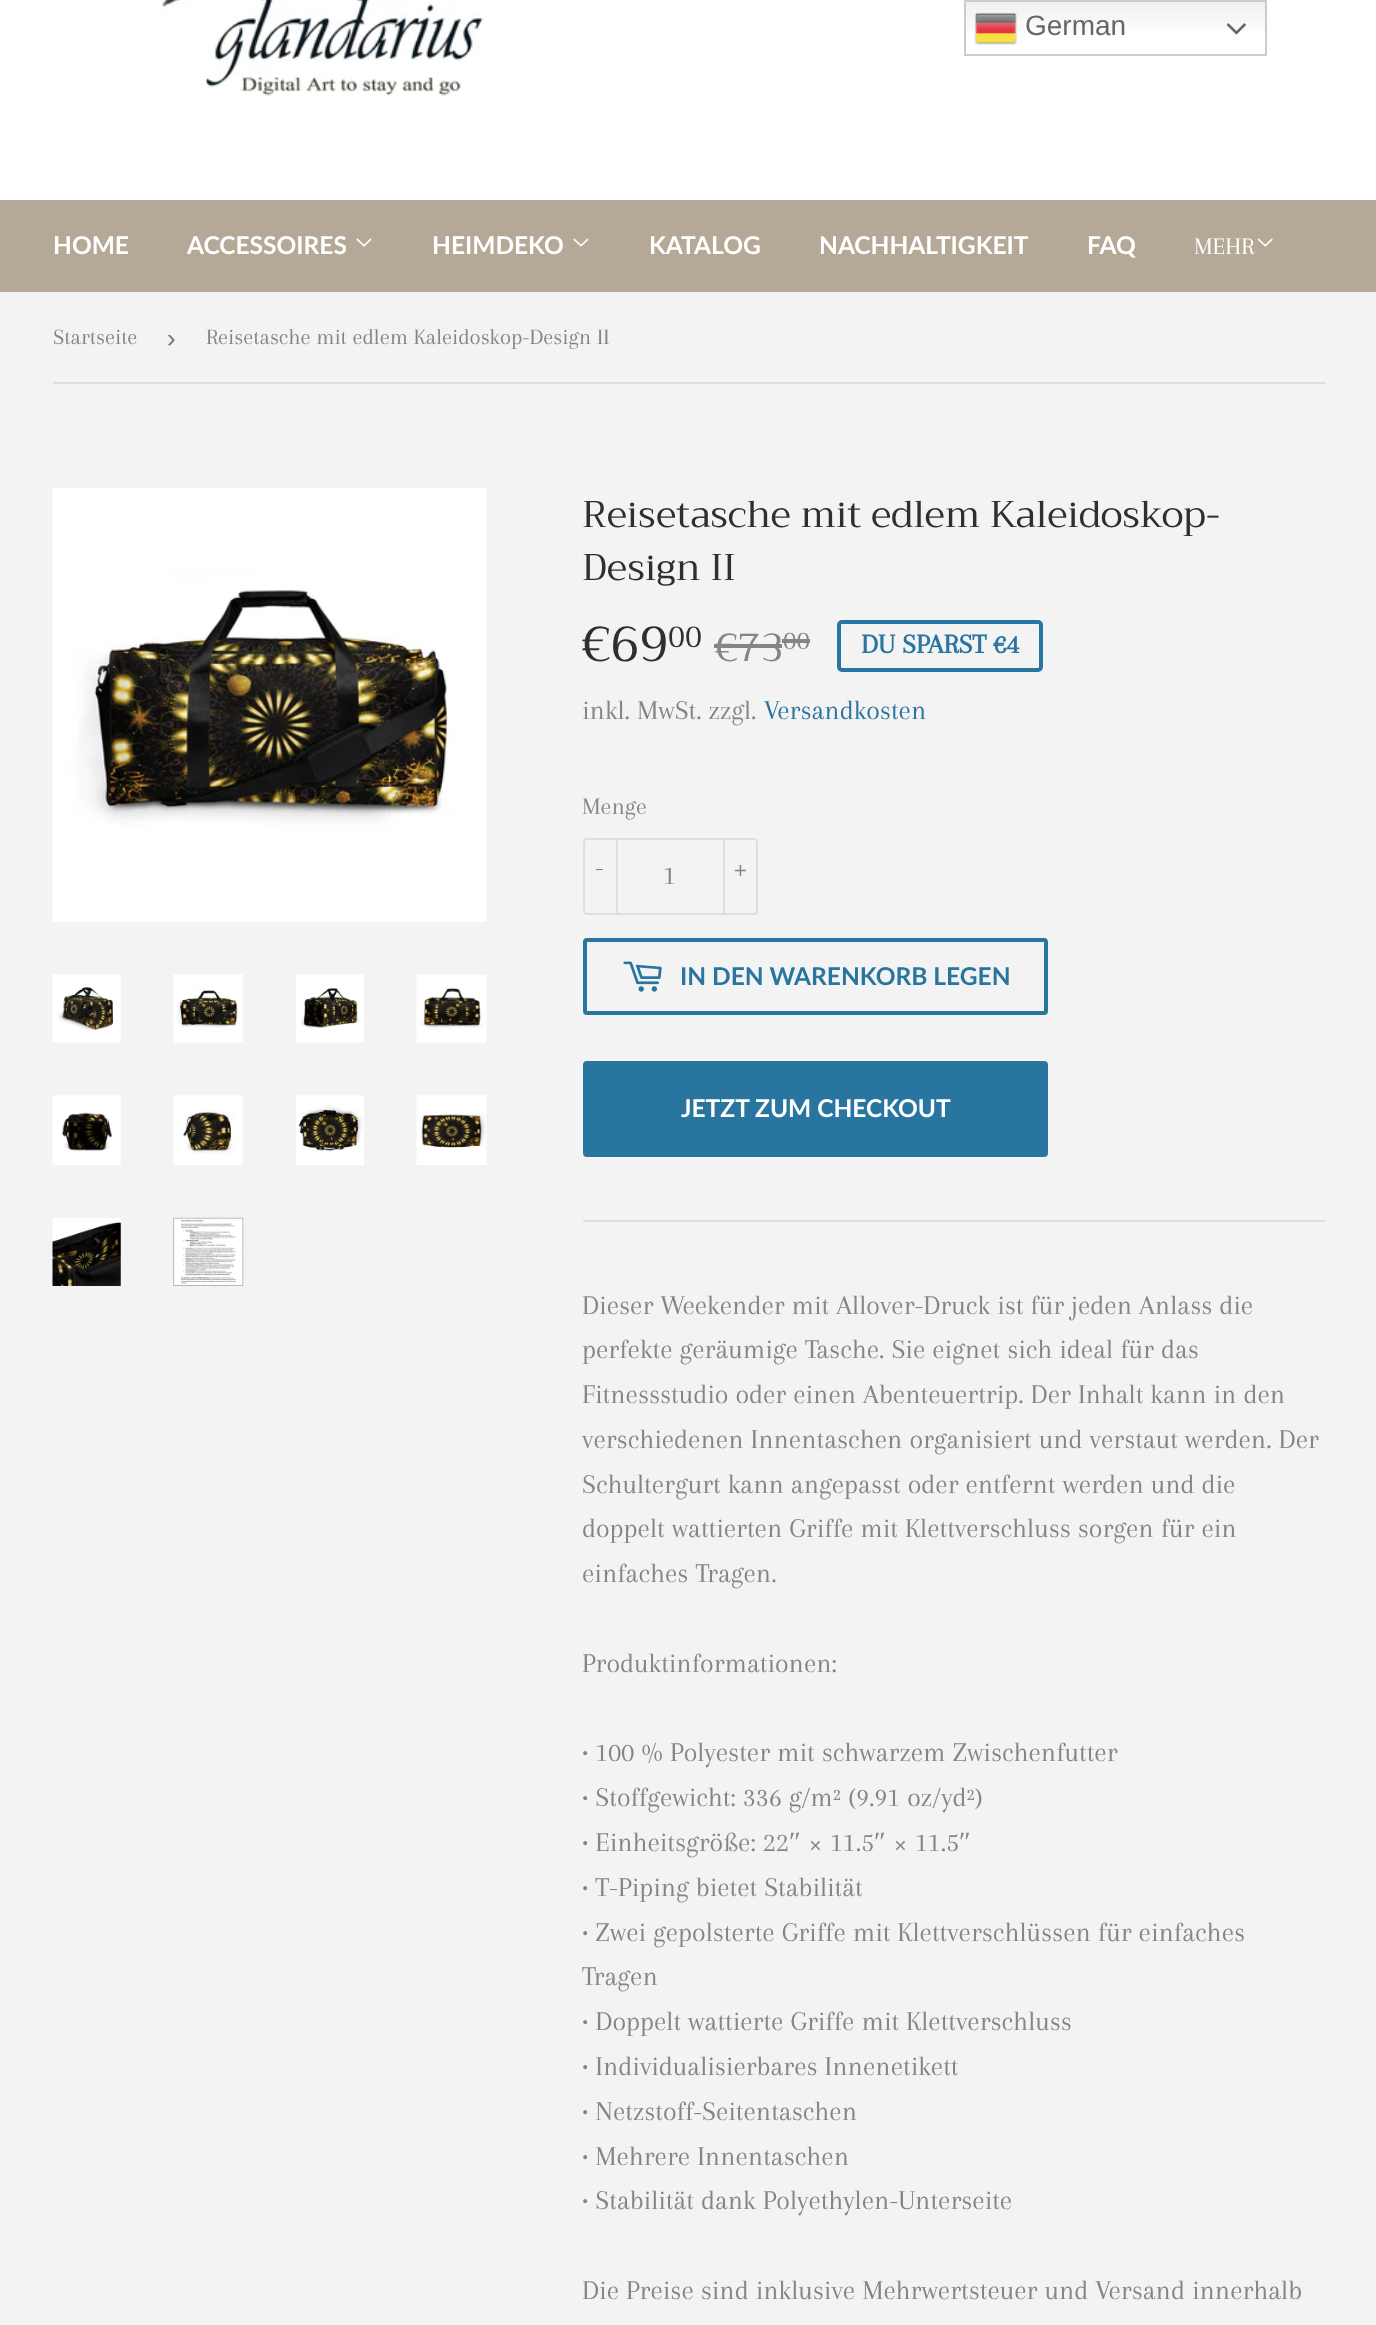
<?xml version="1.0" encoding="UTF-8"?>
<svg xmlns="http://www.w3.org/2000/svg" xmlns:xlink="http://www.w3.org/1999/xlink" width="1376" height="2325">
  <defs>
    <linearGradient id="g1" gradientUnits="userSpaceOnUse" x1="1116" y1="0" x2="1116" y2="56"><stop offset="0" stop-color="#efefef" /><stop offset="0.7" stop-color="#ffffff" /></linearGradient>
  </defs>
  <rect width="100%" height="100%" fill="#f3f3f3" />
  <rect width="1376" height="200" fill="#ffffff" />
  <rect x="966" y="2" width="299" height="31" fill="url(#g1)" />
  <rect x="965" y="1" width="301" height="54" fill="none" stroke="#cccccc" stroke-width="2" />
  <image x="974" y="12" width="43" height="33" xlink:href="image1.png" />
  <image x="1227" y="23" width="19" height="12" xlink:href="image2.png" />
  <image x="162" y="0" width="323" height="97" xlink:href="image3.png" />
  <rect y="200" width="1376" height="92" fill="#b4a996" />
  <image x="356" y="238" width="16" height="9" xlink:href="image4.png" />
  <image x="573" y="238" width="16" height="9" xlink:href="image4.png" />
  <image x="1257" y="238" width="16" height="9" xlink:href="image5.png" />
  <rect x="53" y="382" width="1272" height="2" fill="#dedede" />
  <image x="52" y="488" width="435" height="434" xlink:href="image6.png" />
  <image x="52" y="974" width="69" height="69" xlink:href="image7.png" />
  <image x="173" y="974" width="70" height="69" xlink:href="image8.png" />
  <image x="296" y="974" width="68" height="69" xlink:href="image9.png" />
  <image x="416" y="974" width="71" height="69" xlink:href="image10.png" />
  <image x="52" y="1095" width="69" height="70" xlink:href="image11.png" />
  <image x="173" y="1095" width="70" height="70" xlink:href="image12.png" />
  <image x="296" y="1095" width="68" height="70" xlink:href="image13.png" />
  <image x="416" y="1095" width="71" height="70" xlink:href="image14.png" />
  <image x="52" y="1218" width="69" height="68" xlink:href="image15.png" />
  <image x="173" y="1217" width="71" height="69" xlink:href="image16.png" />
  <rect x="714" y="644" width="68" height="4" fill="#858585" />
  <rect x="782" y="639" width="28" height="4" fill="#858585" />
  <rect x="839" y="622" width="202" height="48" rx="3" fill="none" stroke="#28759f" stroke-width="4" />
  <rect x="584" y="839" width="173" height="75" rx="3" fill="none" stroke="#dedede" stroke-width="2" />
  <rect x="616" y="838" width="2" height="77" fill="#dedede" />
  <rect x="723" y="838" width="2" height="77" fill="#dedede" />
  <rect x="585" y="940" width="461" height="73" rx="2" fill="none" stroke="#28759f" stroke-width="4" />
  <image x="623" y="961" width="39" height="31" xlink:href="image17.png" />
  <rect x="583" y="1061" width="465" height="96" rx="4" fill="#28759f" />
  <rect x="583" y="1220" width="742" height="2" fill="#dedede" />
  <text x="1025" y="35" style="font-family: Liberation Sans; font-size: 28px; fill: #666666">German</text>
  <text x="53" y="254" style="font-family: Lato; font-size: 24.5px; font-weight: bold; fill: #ffffff">HOME</text>
  <text x="187" y="254" style="font-family: Lato; font-size: 24.5px; font-weight: bold; fill: #ffffff">ACCESSOIRES</text>
  <text x="432" y="254" style="font-family: Lato; font-size: 24.5px; font-weight: bold; fill: #ffffff">HEIMDEKO</text>
  <text x="649" y="254" style="font-family: Lato; font-size: 24.5px; font-weight: bold; fill: #ffffff">KATALOG</text>
  <text x="819" y="254" style="font-family: Lato; font-size: 24.5px; font-weight: bold; fill: #ffffff">NACHHALTIGKEIT</text>
  <text x="1087" y="254" style="font-family: Lato; font-size: 24.5px; font-weight: bold; fill: #ffffff">FAQ</text>
  <text x="1194" y="254" style="font-family: Arapey; font-size: 24.5px; fill: #ffffff">MEHR</text>
  <text x="53" y="344" style="font-family: Arapey; font-size: 22.75px; fill: #858585">Startseite</text>
  <text x="167" y="347" style="font-family: Liberation Sans; font-size: 26px; fill: #767676">›</text>
  <text x="206" y="344" style="font-family: Arapey; font-size: 22.75px; fill: #858585">Reisetasche mit edlem Kaleidoskop-Design II</text>
  <text x="582" y="527" style="font-family: Trirong; font-size: 37.3px; fill: #2f2f2f">Reisetasche mit edlem Kaleidoskop-</text>
  <text x="582" y="580" style="font-family: Trirong; font-size: 37.3px; fill: #2f2f2f">Design II</text>
  <text x="582" y="661" style="font-family: Trirong; font-size: 49px; fill: #2f2f2f">€69</text>
  <text x="668" y="647" style="font-family: Trirong; font-size: 29px; fill: #2f2f2f">00</text>
  <text x="715" y="661" style="font-family: Trirong; font-size: 39px; fill: #858585">€73</text>
  <text x="783" y="649" style="font-family: Trirong; font-size: 23px; fill: #858585">00</text>
  <text x="861" y="653" style="font-family: Arapey; font-size: 28px; font-weight: bold; fill: #28759f">DU SPARST €4</text>
  <text x="582" y="719" style="font-family: Arapey; font-size: 28px; fill: #858585">inkl. MwSt. zzgl.</text>
  <text x="764" y="719" style="font-family: Arapey; font-size: 28px; fill: #28759f">Versandkosten</text>
  <text x="582" y="814" style="font-family: Arapey; font-size: 24.5px; fill: #858585">Menge</text>
  <text x="595" y="876" style="font-family: Arapey; font-size: 28px; fill: #858585">-</text>
  <text x="663" y="884" style="font-family: Arapey; font-size: 28px; fill: #858585">1</text>
  <text x="733" y="876" style="font-family: Arapey; font-size: 28px; fill: #858585">+</text>
  <text x="680" y="985" style="font-family: Lato; font-size: 24.5px; font-weight: bold; fill: #28759f">IN DEN WARENKORB LEGEN</text>
  <text x="681" y="1117" style="font-family: Lato; font-size: 24.5px; font-weight: bold; fill: #ffffff">JETZT ZUM CHECKOUT</text>
  <text x="582" y="1314" style="font-family: Arapey; font-size: 28px; fill: #858585">Dieser Weekender mit Allover-Druck ist für jeden Anlass die</text>
  <text x="582" y="1358" style="font-family: Arapey; font-size: 28px; fill: #858585">perfekte geräumige Tasche. Sie eignet sich ideal für das</text>
  <text x="582" y="1403" style="font-family: Arapey; font-size: 28px; fill: #858585">Fitnessstudio oder einen Abenteuertrip. Der Inhalt kann in den</text>
  <text x="582" y="1448" style="font-family: Arapey; font-size: 28px; fill: #858585">verschiedenen Innentaschen organisiert und verstaut werden. Der</text>
  <text x="582" y="1493" style="font-family: Arapey; font-size: 28px; fill: #858585">Schultergurt kann angepasst oder entfernt werden und die</text>
  <text x="582" y="1537" style="font-family: Arapey; font-size: 28px; fill: #858585">doppelt wattierten Griffe mit Klettverschluss sorgen für ein</text>
  <text x="582" y="1582" style="font-family: Arapey; font-size: 28px; fill: #858585">einfaches Tragen.</text>
  <text x="582" y="1672" style="font-family: Arapey; font-size: 28px; fill: #858585">Produktinformationen:</text>
  <text x="582" y="1761" style="font-family: Arapey; font-size: 28px; fill: #858585">• 100 % Polyester mit schwarzem Zwischenfutter</text>
  <text x="582" y="1806" style="font-family: Arapey; font-size: 28px; fill: #858585">• Stoffgewicht: 336 g/m² (9.91 oz/yd²)</text>
  <text x="582" y="1851" style="font-family: Arapey; font-size: 28px; fill: #858585">• Einheitsgröße: 22</text>
  <text x="789" y="1851" style="font-family: Liberation Serif; font-size: 28px; fill: #858585">″</text>
  <text x="808" y="1851" style="font-family: Arapey; font-size: 28px; fill: #858585">× 11.5</text>
  <text x="874" y="1851" style="font-family: Liberation Serif; font-size: 28px; fill: #858585">″</text>
  <text x="893" y="1851" style="font-family: Arapey; font-size: 28px; fill: #858585">× 11.5</text>
  <text x="959" y="1851" style="font-family: Liberation Serif; font-size: 28px; fill: #858585">″</text>
  <text x="582" y="1896" style="font-family: Arapey; font-size: 28px; fill: #858585">• T-Piping bietet Stabilität</text>
  <text x="582" y="1941" style="font-family: Arapey; font-size: 28px; fill: #858585">• Zwei gepolsterte Griffe mit Klettverschlüssen für einfaches</text>
  <text x="582" y="1985" style="font-family: Arapey; font-size: 28px; fill: #858585">Tragen</text>
  <text x="582" y="2030" style="font-family: Arapey; font-size: 28px; fill: #858585">• Doppelt wattierte Griffe mit Klettverschluss</text>
  <text x="582" y="2075" style="font-family: Arapey; font-size: 28px; fill: #858585">• Individualisierbares Innenetikett</text>
  <text x="582" y="2120" style="font-family: Arapey; font-size: 28px; fill: #858585">• Netzstoff-Seitentaschen</text>
  <text x="582" y="2165" style="font-family: Arapey; font-size: 28px; fill: #858585">• Mehrere Innentaschen</text>
  <text x="582" y="2209" style="font-family: Arapey; font-size: 28px; fill: #858585">• Stabilität dank Polyethylen-Unterseite</text>
  <text x="582" y="2299" style="font-family: Arapey; font-size: 28px; fill: #858585">Die Preise sind inklusive Mehrwertsteuer und Versand innerhalb</text>
</svg>
